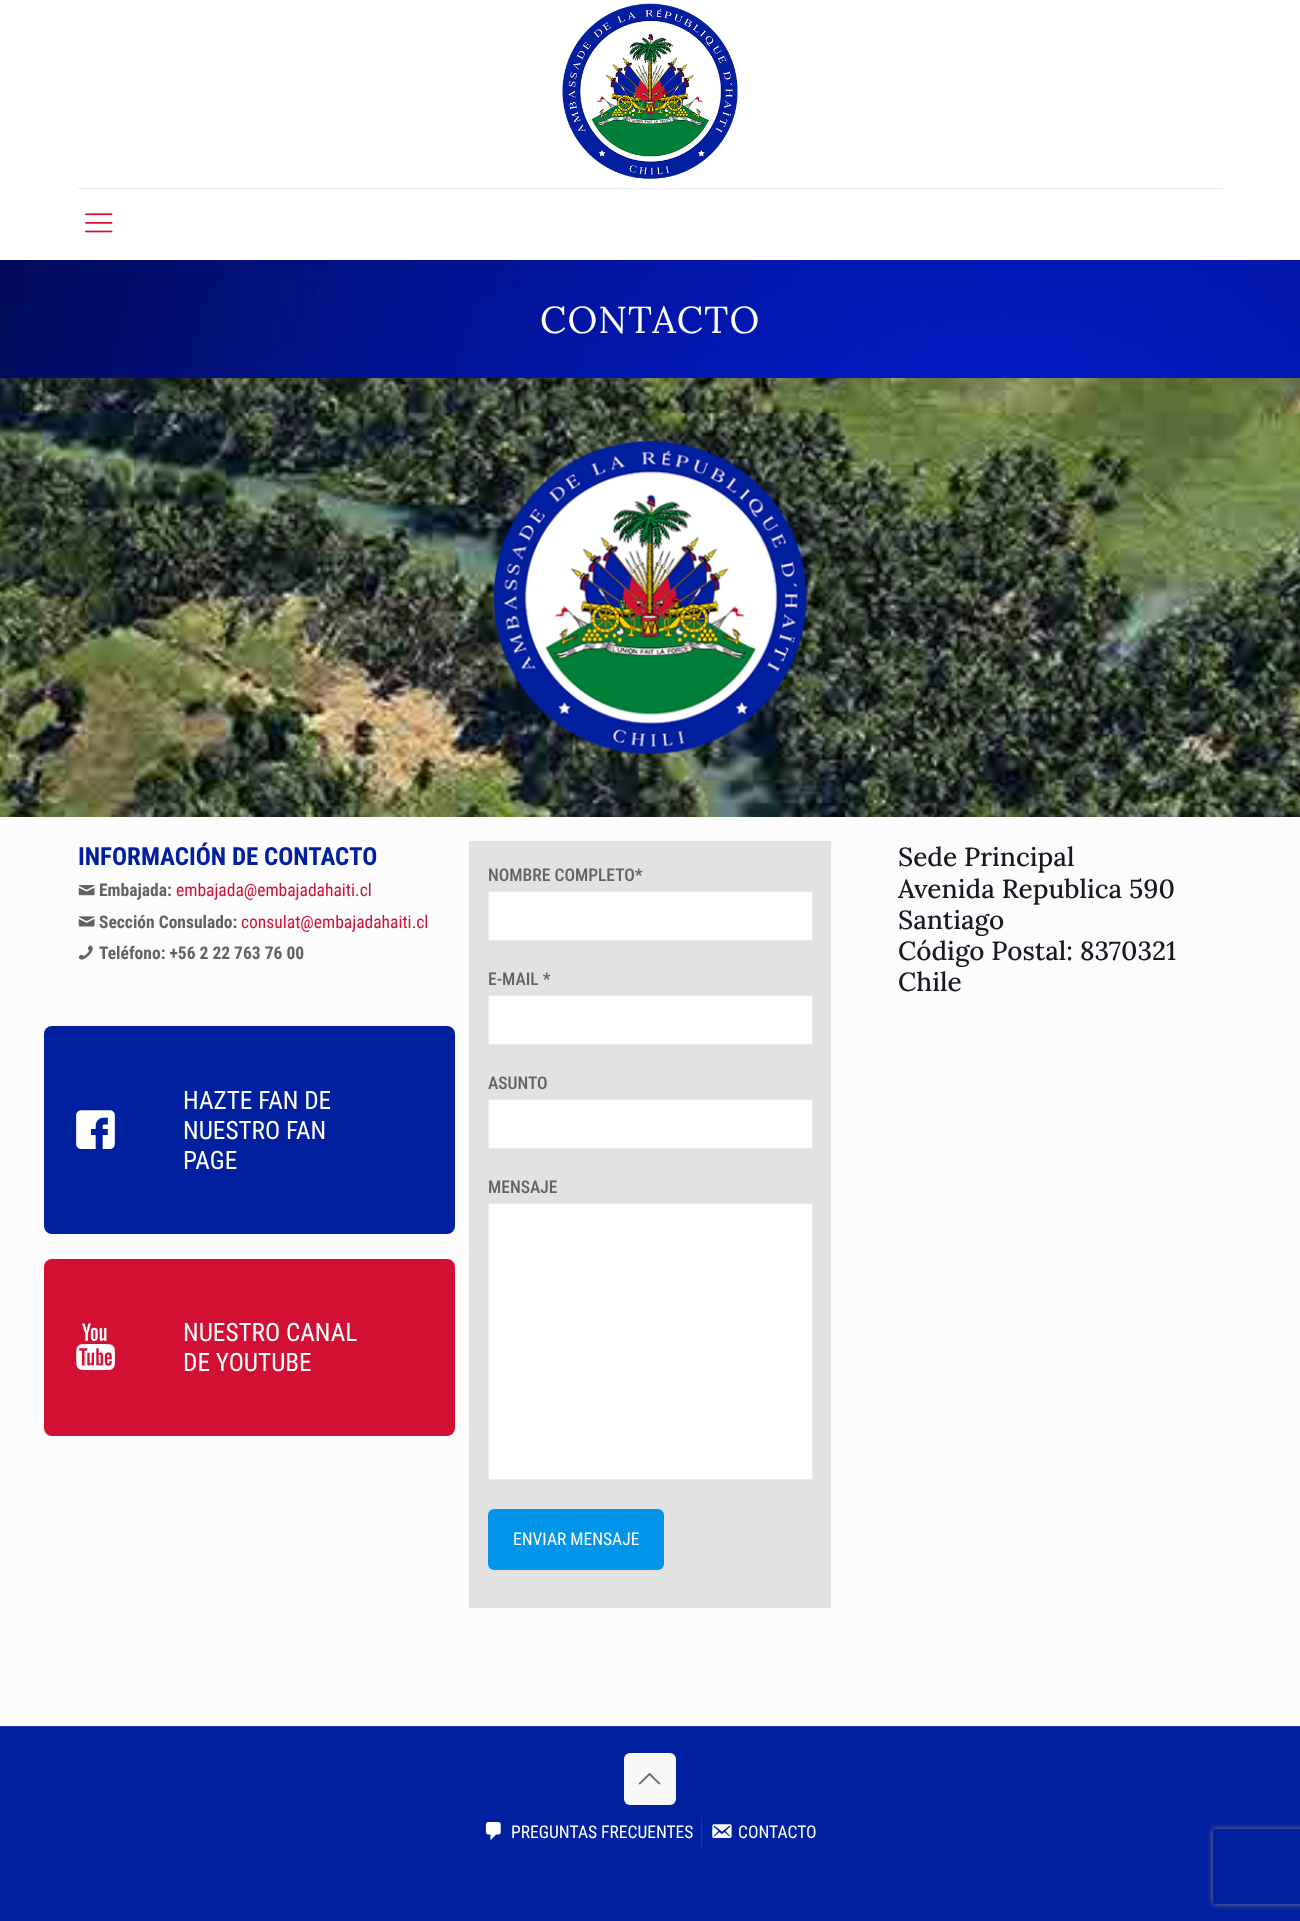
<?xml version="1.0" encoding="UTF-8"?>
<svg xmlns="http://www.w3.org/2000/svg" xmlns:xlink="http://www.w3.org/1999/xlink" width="1300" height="1921">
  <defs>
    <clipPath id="clip1"><path d="M 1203 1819 h 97 v 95 h -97 z m 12.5 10 h 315 c 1.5 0 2.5 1 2.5 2.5 v 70 c 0 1.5 -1 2.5 -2.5 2.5 h -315 c -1.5 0 -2.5 -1 -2.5 -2.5 v -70 c 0 -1.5 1 -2.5 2.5 -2.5 z" clip-rule="evenodd" /></clipPath>
  </defs>
  <rect width="100%" height="100%" fill="#fcfcfc" />
  <rect width="1300" height="260" fill="#ffffff" />
  <rect x="78" y="188" width="1145" height="1" fill="#ebebeb" />
  <image x="562" y="3" width="176" height="176" xlink:href="image1.png" />
  <image x="85" y="213" width="28" height="20" xlink:href="image2.png" />
  <image x="0" y="260" width="1300" height="118" xlink:href="image3.png" />
  <image x="0" y="378" width="1300" height="439" xlink:href="image4.png" />
  <image x="493" y="441" width="314" height="313" xlink:href="image5.png" />
  <image x="78" y="885" width="17" height="11" xlink:href="image6.png" />
  <image x="78" y="916" width="17" height="11" xlink:href="image7.png" />
  <image x="78" y="945" width="15" height="15" xlink:href="image8.png" />
  <rect x="44" y="1026" width="411" height="208" rx="8" fill="#00209f" />
  <image x="76" y="1110" width="39" height="39" xlink:href="image9.png" />
  <rect x="44" y="1259" width="411" height="177" rx="8" fill="#d21034" />
  <image x="76" y="1323" width="39" height="48" xlink:href="image10.png" />
  <rect x="469" y="841" width="362" height="767" fill="#e2e2e2" />
  <rect x="488.5" y="891.5" width="324" height="49" fill="#ffffff" stroke="#ebebeb" />
  <rect x="488.5" y="995.5" width="324" height="49" fill="#ffffff" stroke="#ebebeb" />
  <rect x="488.5" y="1099.5" width="324" height="49" fill="#ffffff" stroke="#ebebeb" />
  <rect x="488.5" y="1203.5" width="324" height="276" fill="#ffffff" stroke="#ebebeb" />
  <rect x="488" y="1509" width="176" height="61" rx="6" fill="#0095eb" />
  <rect y="1727" width="1300" height="194" fill="#00209f" />
  <rect y="1726" width="1300" height="1" fill="#1a36a9" />
  <rect x="624" y="1753" width="52" height="52" rx="6" fill="#f7f7f7" />
  <image x="638" y="1773" width="23" height="12" xlink:href="image11.png" />
  <rect x="701" y="1818" width="1" height="31" fill="#1a36a9" />
  <image x="485" y="1822" width="16" height="19" xlink:href="image12.png" />
  <image x="712" y="1824" width="20" height="14" xlink:href="image13.png" />
  <g clip-path="url(#clip1)">
    <rect x="1213" y="1829" width="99" height="75" rx="2.5" fill="#808080" filter="blur(3px)" />
  </g>
  <text x="540" y="333" style="font-family: Lora; font-size: 37.5px; letter-spacing: 1.25px; fill: #ffffff">CONTACTO</text>
  <text x="78" y="865" style="font-family: Roboto Condensed; font-size: 25px; font-weight: bold; fill: #00209f">INFORMACIÓN DE CONTACTO</text>
  <text x="99" y="896" style="font-family: Roboto Condensed; font-size: 17.5px; font-weight: bold; fill: #626262">Embajada:</text>
  <text x="176" y="896" style="font-family: Roboto Condensed; font-size: 17.5px; fill: #d21034">embajada@embajadahaiti.cl</text>
  <text x="99" y="928" style="font-family: Roboto Condensed; font-size: 17.5px; font-weight: bold; fill: #626262">Sección Consulado:</text>
  <text x="241" y="928" style="font-family: Roboto Condensed; font-size: 17.5px; fill: #d21034">consulat@embajadahaiti.cl</text>
  <text x="99" y="959" style="font-family: Roboto Condensed; font-size: 17.5px; font-weight: bold; fill: #626262">Teléfono: +56 2 22 763 76 00</text>
  <text x="183" y="1109" style="font-family: Roboto Condensed; font-size: 25.25px; fill: #ffffff">HAZTE FAN DE</text>
  <text x="183" y="1139" style="font-family: Roboto Condensed; font-size: 25.25px; fill: #ffffff">NUESTRO FAN</text>
  <text x="183" y="1169" style="font-family: Roboto Condensed; font-size: 25.25px; fill: #ffffff">PAGE</text>
  <text x="183" y="1341" style="font-family: Roboto Condensed; font-size: 25.25px; fill: #ffffff">NUESTRO CANAL</text>
  <text x="183" y="1371" style="font-family: Roboto Condensed; font-size: 25.25px; fill: #ffffff">DE YOUTUBE</text>
  <text x="488" y="881" style="font-family: Roboto Condensed; font-size: 17.5px; font-weight: 500; fill: #626262">NOMBRE COMPLETO*</text>
  <text x="488" y="985" style="font-family: Roboto Condensed; font-size: 17.5px; font-weight: 500; fill: #626262">E-MAIL *</text>
  <text x="488" y="1089" style="font-family: Roboto Condensed; font-size: 17.5px; font-weight: 500; fill: #626262">ASUNTO</text>
  <text x="488" y="1193" style="font-family: Roboto Condensed; font-size: 17.5px; font-weight: 500; fill: #626262">MENSAJE</text>
  <text x="513" y="1545" style="font-family: Roboto Condensed; font-size: 17.5px; fill: #ffffff">ENVIAR MENSAJE</text>
  <text x="898" y="866" style="font-family: Lora; font-size: 26.25px; font-weight: 500; fill: #161922">Sede Principal</text>
  <text x="898" y="898" style="font-family: Lora; font-size: 26.25px; font-weight: 500; fill: #161922">Avenida Republica 590</text>
  <text x="898" y="929" style="font-family: Lora; font-size: 26.25px; font-weight: 500; fill: #161922">Santiago</text>
  <text x="898" y="960" style="font-family: Lora; font-size: 26.25px; font-weight: 500; fill: #161922">Código Postal: 8370321</text>
  <text x="898" y="991" style="font-family: Lora; font-size: 26.25px; font-weight: 500; fill: #161922">Chile</text>
  <text x="511" y="1838" style="font-family: Roboto Condensed; font-size: 17.5px; fill: #ffffff">PREGUNTAS FRECUENTES</text>
  <text x="738" y="1838" style="font-family: Roboto Condensed; font-size: 17.5px; fill: #ffffff">CONTACTO</text>
</svg>
